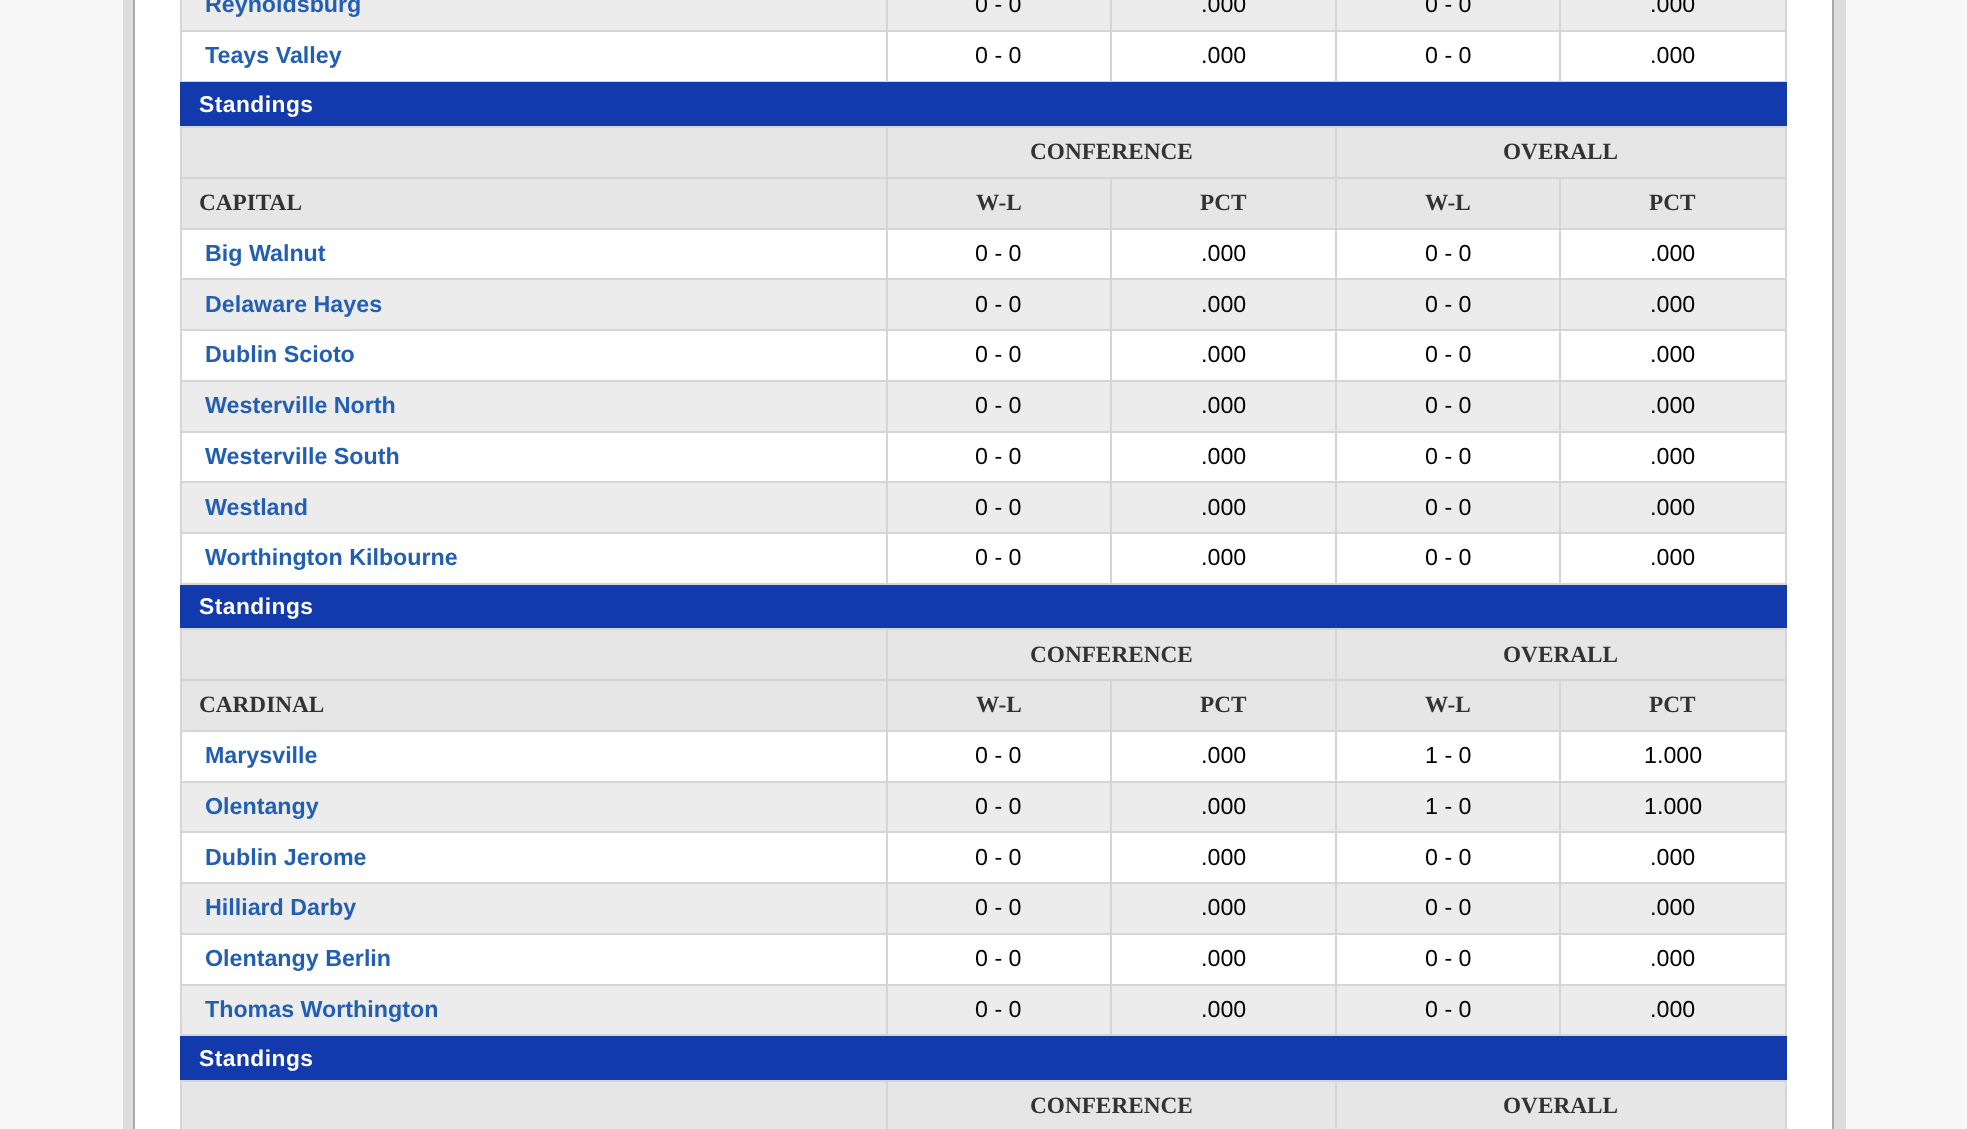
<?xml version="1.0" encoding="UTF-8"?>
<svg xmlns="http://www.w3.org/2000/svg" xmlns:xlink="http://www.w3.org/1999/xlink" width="1967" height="1129">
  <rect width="100%" height="100%" fill="#f7f7f7" />
  <rect x="123" width="1723" height="1129" fill="#dddddd" />
  <rect x="135" width="1697" height="1129" fill="#ffffff" />
  <rect x="1832" width="2" height="1129" fill="#aaaaaa" />
  <rect x="133" width="2" height="1129" fill="#aaaaaa" />
  <rect x="180" y="81" width="1607" height="1" fill="#d5d5d5" />
  <rect x="182" width="1603" height="30" fill="#ececec" />
  <rect x="1559" y="30" width="228" height="2" fill="#d5d5d5" />
  <rect x="1559" y="30" width="2" height="52" fill="#d5d5d5" />
  <rect x="1335" y="30" width="226" height="2" fill="#d5d5d5" />
  <rect x="1335" y="30" width="2" height="52" fill="#d5d5d5" />
  <rect x="1110" y="30" width="227" height="2" fill="#d5d5d5" />
  <rect x="1110" y="30" width="2" height="52" fill="#d5d5d5" />
  <rect x="886" y="30" width="225" height="2" fill="#d5d5d5" />
  <rect x="886" y="30" width="2" height="52" fill="#d5d5d5" />
  <rect x="180" y="30" width="707" height="2" fill="#d5d5d5" />
  <rect x="886" width="2" height="32" fill="#d5d5d5" />
  <rect x="1110" width="2" height="32" fill="#d5d5d5" />
  <rect x="1335" width="2" height="32" fill="#d5d5d5" />
  <rect x="1559" width="2" height="32" fill="#d5d5d5" />
  <rect x="180" width="2" height="82" fill="#d5d5d5" />
  <rect x="1785" width="2" height="82" fill="#d5d5d5" />
  <rect x="180" y="583" width="1607" height="2" fill="#d5d5d5" />
  <rect x="180" y="82" width="1605" height="44" fill="#133aac" />
  <rect x="1785" y="82" width="2" height="46" fill="#133aac" />
  <rect x="182" y="128" width="704" height="49" fill="#e6e6e6" />
  <rect x="1335" y="126" width="452" height="2" fill="#d5d5d5" />
  <rect x="1559" y="177" width="228" height="2" fill="#d5d5d5" />
  <rect x="1559" y="228" width="228" height="2" fill="#d5d5d5" />
  <rect x="1559" y="278" width="228" height="2" fill="#d5d5d5" />
  <rect x="182" y="280" width="1603" height="49" fill="#ececec" />
  <rect x="1559" y="329" width="228" height="2" fill="#d5d5d5" />
  <rect x="1559" y="380" width="228" height="2" fill="#d5d5d5" />
  <rect x="182" y="382" width="1603" height="49" fill="#ececec" />
  <rect x="1559" y="431" width="228" height="2" fill="#d5d5d5" />
  <rect x="1559" y="481" width="228" height="2" fill="#d5d5d5" />
  <rect x="182" y="483" width="1603" height="49" fill="#ececec" />
  <rect x="1559" y="532" width="228" height="2" fill="#d5d5d5" />
  <rect x="1559" y="532" width="2" height="53" fill="#d5d5d5" />
  <rect x="1335" y="532" width="226" height="2" fill="#d5d5d5" />
  <rect x="1559" y="481" width="2" height="53" fill="#d5d5d5" />
  <rect x="1335" y="481" width="226" height="2" fill="#d5d5d5" />
  <rect x="1559" y="431" width="2" height="52" fill="#d5d5d5" />
  <rect x="1335" y="431" width="226" height="2" fill="#d5d5d5" />
  <rect x="1559" y="380" width="2" height="52" fill="#d5d5d5" />
  <rect x="1335" y="380" width="226" height="2" fill="#d5d5d5" />
  <rect x="1559" y="329" width="2" height="53" fill="#d5d5d5" />
  <rect x="1335" y="329" width="226" height="2" fill="#d5d5d5" />
  <rect x="1559" y="278" width="2" height="53" fill="#d5d5d5" />
  <rect x="1335" y="278" width="226" height="2" fill="#d5d5d5" />
  <rect x="1559" y="228" width="2" height="52" fill="#d5d5d5" />
  <rect x="1335" y="228" width="226" height="2" fill="#d5d5d5" />
  <rect x="1559" y="177" width="2" height="52" fill="#d5d5d5" />
  <rect x="1335" y="177" width="226" height="2" fill="#d5d5d5" />
  <rect x="1335" y="532" width="2" height="53" fill="#d5d5d5" />
  <rect x="1110" y="532" width="227" height="2" fill="#d5d5d5" />
  <rect x="1335" y="481" width="2" height="53" fill="#d5d5d5" />
  <rect x="1110" y="481" width="227" height="2" fill="#d5d5d5" />
  <rect x="1335" y="431" width="2" height="52" fill="#d5d5d5" />
  <rect x="1110" y="431" width="227" height="2" fill="#d5d5d5" />
  <rect x="1335" y="380" width="2" height="52" fill="#d5d5d5" />
  <rect x="1110" y="380" width="227" height="2" fill="#d5d5d5" />
  <rect x="1335" y="329" width="2" height="53" fill="#d5d5d5" />
  <rect x="1110" y="329" width="227" height="2" fill="#d5d5d5" />
  <rect x="1335" y="278" width="2" height="53" fill="#d5d5d5" />
  <rect x="1110" y="278" width="227" height="2" fill="#d5d5d5" />
  <rect x="1335" y="228" width="2" height="52" fill="#d5d5d5" />
  <rect x="1110" y="228" width="227" height="2" fill="#d5d5d5" />
  <rect x="1335" y="177" width="2" height="52" fill="#d5d5d5" />
  <rect x="1110" y="177" width="227" height="2" fill="#d5d5d5" />
  <rect x="1335" y="126" width="2" height="53" fill="#d5d5d5" />
  <rect x="886" y="126" width="451" height="2" fill="#d5d5d5" />
  <rect x="1110" y="532" width="2" height="53" fill="#d5d5d5" />
  <rect x="886" y="532" width="225" height="2" fill="#d5d5d5" />
  <rect x="1110" y="481" width="2" height="53" fill="#d5d5d5" />
  <rect x="886" y="481" width="225" height="2" fill="#d5d5d5" />
  <rect x="1110" y="431" width="2" height="52" fill="#d5d5d5" />
  <rect x="886" y="431" width="225" height="2" fill="#d5d5d5" />
  <rect x="1110" y="380" width="2" height="52" fill="#d5d5d5" />
  <rect x="886" y="380" width="225" height="2" fill="#d5d5d5" />
  <rect x="1110" y="329" width="2" height="53" fill="#d5d5d5" />
  <rect x="886" y="329" width="225" height="2" fill="#d5d5d5" />
  <rect x="1110" y="278" width="2" height="53" fill="#d5d5d5" />
  <rect x="886" y="278" width="225" height="2" fill="#d5d5d5" />
  <rect x="1110" y="228" width="2" height="52" fill="#d5d5d5" />
  <rect x="886" y="228" width="225" height="2" fill="#d5d5d5" />
  <rect x="1110" y="177" width="2" height="52" fill="#d5d5d5" />
  <rect x="886" y="177" width="225" height="2" fill="#d5d5d5" />
  <rect x="886" y="532" width="2" height="53" fill="#d5d5d5" />
  <rect x="180" y="532" width="707" height="2" fill="#d5d5d5" />
  <rect x="886" y="481" width="2" height="53" fill="#d5d5d5" />
  <rect x="180" y="481" width="707" height="2" fill="#d5d5d5" />
  <rect x="886" y="431" width="2" height="52" fill="#d5d5d5" />
  <rect x="180" y="431" width="707" height="2" fill="#d5d5d5" />
  <rect x="886" y="380" width="2" height="52" fill="#d5d5d5" />
  <rect x="180" y="380" width="707" height="2" fill="#d5d5d5" />
  <rect x="886" y="329" width="2" height="53" fill="#d5d5d5" />
  <rect x="180" y="329" width="707" height="2" fill="#d5d5d5" />
  <rect x="886" y="278" width="2" height="53" fill="#d5d5d5" />
  <rect x="180" y="278" width="707" height="2" fill="#d5d5d5" />
  <rect x="886" y="228" width="2" height="52" fill="#d5d5d5" />
  <rect x="180" y="228" width="707" height="2" fill="#d5d5d5" />
  <rect x="886" y="177" width="2" height="52" fill="#d5d5d5" />
  <rect x="180" y="177" width="707" height="2" fill="#d5d5d5" />
  <rect x="886" y="126" width="2" height="53" fill="#d5d5d5" />
  <rect x="180" y="126" width="707" height="2" fill="#d5d5d5" />
  <rect x="180" y="532" width="2" height="53" fill="#d5d5d5" />
  <rect x="180" y="481" width="2" height="53" fill="#d5d5d5" />
  <rect x="180" y="431" width="2" height="52" fill="#d5d5d5" />
  <rect x="180" y="380" width="2" height="52" fill="#d5d5d5" />
  <rect x="180" y="329" width="2" height="53" fill="#d5d5d5" />
  <rect x="180" y="278" width="2" height="53" fill="#d5d5d5" />
  <rect x="180" y="228" width="2" height="52" fill="#d5d5d5" />
  <rect x="180" y="177" width="2" height="52" fill="#d5d5d5" />
  <rect x="180" y="126" width="2" height="53" fill="#d5d5d5" />
  <rect x="888" y="128" width="447" height="49" fill="#e6e6e6" />
  <rect x="1337" y="128" width="448" height="49" fill="#e6e6e6" />
  <rect x="1785" y="532" width="2" height="53" fill="#d5d5d5" />
  <rect x="1785" y="481" width="2" height="53" fill="#d5d5d5" />
  <rect x="1785" y="431" width="2" height="52" fill="#d5d5d5" />
  <rect x="1785" y="380" width="2" height="52" fill="#d5d5d5" />
  <rect x="1785" y="329" width="2" height="53" fill="#d5d5d5" />
  <rect x="1785" y="278" width="2" height="53" fill="#d5d5d5" />
  <rect x="1785" y="228" width="2" height="52" fill="#d5d5d5" />
  <rect x="1785" y="177" width="2" height="52" fill="#d5d5d5" />
  <rect x="1785" y="126" width="2" height="53" fill="#d5d5d5" />
  <rect x="182" y="179" width="704" height="49" fill="#e6e6e6" />
  <rect x="888" y="179" width="222" height="49" fill="#e6e6e6" />
  <rect x="1112" y="179" width="223" height="49" fill="#e6e6e6" />
  <rect x="1337" y="179" width="222" height="49" fill="#e6e6e6" />
  <rect x="1561" y="179" width="224" height="49" fill="#e6e6e6" />
  <rect x="180" y="1034" width="1607" height="2" fill="#d5d5d5" />
  <rect x="180" y="585" width="1605" height="43" fill="#133aac" />
  <rect x="1785" y="585" width="2" height="45" fill="#133aac" />
  <rect x="182" y="630" width="704" height="49" fill="#e6e6e6" />
  <rect x="1335" y="628" width="452" height="2" fill="#d5d5d5" />
  <rect x="1559" y="679" width="228" height="2" fill="#d5d5d5" />
  <rect x="1559" y="730" width="228" height="2" fill="#d5d5d5" />
  <rect x="1559" y="781" width="228" height="2" fill="#d5d5d5" />
  <rect x="182" y="783" width="1603" height="48" fill="#ececec" />
  <rect x="1559" y="831" width="228" height="2" fill="#d5d5d5" />
  <rect x="1559" y="882" width="228" height="2" fill="#d5d5d5" />
  <rect x="182" y="884" width="1603" height="49" fill="#ececec" />
  <rect x="1559" y="933" width="228" height="2" fill="#d5d5d5" />
  <rect x="1559" y="984" width="228" height="2" fill="#d5d5d5" />
  <rect x="182" y="986" width="1603" height="48" fill="#ececec" />
  <rect x="1559" y="984" width="2" height="52" fill="#d5d5d5" />
  <rect x="1335" y="984" width="226" height="2" fill="#d5d5d5" />
  <rect x="1559" y="933" width="2" height="52" fill="#d5d5d5" />
  <rect x="1335" y="933" width="226" height="2" fill="#d5d5d5" />
  <rect x="1559" y="882" width="2" height="53" fill="#d5d5d5" />
  <rect x="1335" y="882" width="226" height="2" fill="#d5d5d5" />
  <rect x="1559" y="831" width="2" height="53" fill="#d5d5d5" />
  <rect x="1335" y="831" width="226" height="2" fill="#d5d5d5" />
  <rect x="1559" y="781" width="2" height="52" fill="#d5d5d5" />
  <rect x="1335" y="781" width="226" height="2" fill="#d5d5d5" />
  <rect x="1559" y="730" width="2" height="52" fill="#d5d5d5" />
  <rect x="1335" y="730" width="226" height="2" fill="#d5d5d5" />
  <rect x="1559" y="679" width="2" height="53" fill="#d5d5d5" />
  <rect x="1335" y="679" width="226" height="2" fill="#d5d5d5" />
  <rect x="1335" y="984" width="2" height="52" fill="#d5d5d5" />
  <rect x="1110" y="984" width="227" height="2" fill="#d5d5d5" />
  <rect x="1335" y="933" width="2" height="52" fill="#d5d5d5" />
  <rect x="1110" y="933" width="227" height="2" fill="#d5d5d5" />
  <rect x="1335" y="882" width="2" height="53" fill="#d5d5d5" />
  <rect x="1110" y="882" width="227" height="2" fill="#d5d5d5" />
  <rect x="1335" y="831" width="2" height="53" fill="#d5d5d5" />
  <rect x="1110" y="831" width="227" height="2" fill="#d5d5d5" />
  <rect x="1335" y="781" width="2" height="52" fill="#d5d5d5" />
  <rect x="1110" y="781" width="227" height="2" fill="#d5d5d5" />
  <rect x="1335" y="730" width="2" height="52" fill="#d5d5d5" />
  <rect x="1110" y="730" width="227" height="2" fill="#d5d5d5" />
  <rect x="1335" y="679" width="2" height="53" fill="#d5d5d5" />
  <rect x="1110" y="679" width="227" height="2" fill="#d5d5d5" />
  <rect x="1335" y="628" width="2" height="53" fill="#d5d5d5" />
  <rect x="886" y="628" width="451" height="2" fill="#d5d5d5" />
  <rect x="1110" y="984" width="2" height="52" fill="#d5d5d5" />
  <rect x="886" y="984" width="225" height="2" fill="#d5d5d5" />
  <rect x="1110" y="933" width="2" height="52" fill="#d5d5d5" />
  <rect x="886" y="933" width="225" height="2" fill="#d5d5d5" />
  <rect x="1110" y="882" width="2" height="53" fill="#d5d5d5" />
  <rect x="886" y="882" width="225" height="2" fill="#d5d5d5" />
  <rect x="1110" y="831" width="2" height="53" fill="#d5d5d5" />
  <rect x="886" y="831" width="225" height="2" fill="#d5d5d5" />
  <rect x="1110" y="781" width="2" height="52" fill="#d5d5d5" />
  <rect x="886" y="781" width="225" height="2" fill="#d5d5d5" />
  <rect x="1110" y="730" width="2" height="52" fill="#d5d5d5" />
  <rect x="886" y="730" width="225" height="2" fill="#d5d5d5" />
  <rect x="1110" y="679" width="2" height="53" fill="#d5d5d5" />
  <rect x="886" y="679" width="225" height="2" fill="#d5d5d5" />
  <rect x="886" y="984" width="2" height="52" fill="#d5d5d5" />
  <rect x="180" y="984" width="707" height="2" fill="#d5d5d5" />
  <rect x="886" y="933" width="2" height="52" fill="#d5d5d5" />
  <rect x="180" y="933" width="707" height="2" fill="#d5d5d5" />
  <rect x="886" y="882" width="2" height="53" fill="#d5d5d5" />
  <rect x="180" y="882" width="707" height="2" fill="#d5d5d5" />
  <rect x="886" y="831" width="2" height="53" fill="#d5d5d5" />
  <rect x="180" y="831" width="707" height="2" fill="#d5d5d5" />
  <rect x="886" y="781" width="2" height="52" fill="#d5d5d5" />
  <rect x="180" y="781" width="707" height="2" fill="#d5d5d5" />
  <rect x="886" y="730" width="2" height="52" fill="#d5d5d5" />
  <rect x="180" y="730" width="707" height="2" fill="#d5d5d5" />
  <rect x="886" y="679" width="2" height="53" fill="#d5d5d5" />
  <rect x="180" y="679" width="707" height="2" fill="#d5d5d5" />
  <rect x="886" y="628" width="2" height="53" fill="#d5d5d5" />
  <rect x="180" y="628" width="707" height="2" fill="#d5d5d5" />
  <rect x="180" y="984" width="2" height="52" fill="#d5d5d5" />
  <rect x="180" y="933" width="2" height="52" fill="#d5d5d5" />
  <rect x="180" y="882" width="2" height="53" fill="#d5d5d5" />
  <rect x="180" y="831" width="2" height="53" fill="#d5d5d5" />
  <rect x="180" y="781" width="2" height="52" fill="#d5d5d5" />
  <rect x="180" y="730" width="2" height="52" fill="#d5d5d5" />
  <rect x="180" y="679" width="2" height="53" fill="#d5d5d5" />
  <rect x="180" y="628" width="2" height="53" fill="#d5d5d5" />
  <rect x="888" y="630" width="447" height="49" fill="#e6e6e6" />
  <rect x="1337" y="630" width="448" height="49" fill="#e6e6e6" />
  <rect x="1785" y="984" width="2" height="52" fill="#d5d5d5" />
  <rect x="1785" y="933" width="2" height="52" fill="#d5d5d5" />
  <rect x="1785" y="882" width="2" height="53" fill="#d5d5d5" />
  <rect x="1785" y="831" width="2" height="53" fill="#d5d5d5" />
  <rect x="1785" y="781" width="2" height="52" fill="#d5d5d5" />
  <rect x="1785" y="730" width="2" height="52" fill="#d5d5d5" />
  <rect x="1785" y="679" width="2" height="53" fill="#d5d5d5" />
  <rect x="1785" y="628" width="2" height="53" fill="#d5d5d5" />
  <rect x="182" y="681" width="704" height="49" fill="#e6e6e6" />
  <rect x="888" y="681" width="222" height="49" fill="#e6e6e6" />
  <rect x="1112" y="681" width="223" height="49" fill="#e6e6e6" />
  <rect x="1337" y="681" width="222" height="49" fill="#e6e6e6" />
  <rect x="1561" y="681" width="224" height="49" fill="#e6e6e6" />
  <rect x="180" y="1036" width="1605" height="44" fill="#133aac" />
  <rect x="1785" y="1036" width="2" height="46" fill="#133aac" />
  <rect x="182" y="1082" width="704" height="47" fill="#e6e6e6" />
  <rect x="1335" y="1080" width="452" height="2" fill="#d5d5d5" />
  <rect x="1335" y="1080" width="2" height="49" fill="#d5d5d5" />
  <rect x="886" y="1080" width="451" height="2" fill="#d5d5d5" />
  <rect x="886" y="1080" width="2" height="49" fill="#d5d5d5" />
  <rect x="180" y="1080" width="707" height="2" fill="#d5d5d5" />
  <rect x="180" y="1080" width="2" height="49" fill="#d5d5d5" />
  <rect x="888" y="1082" width="447" height="47" fill="#e6e6e6" />
  <rect x="1337" y="1082" width="448" height="47" fill="#e6e6e6" />
  <rect x="1785" y="1080" width="2" height="49" fill="#d5d5d5" />
  <text x="205" y="12" style="font-family: Liberation Sans; font-size: 23.25px; font-weight: bold; fill: #225fb2">Reynoldsburg</text>
  <text x="975" y="12" style="font-family: Liberation Sans; font-size: 23.25px; fill: #000000">0 - 0</text>
  <text x="1201" y="12" style="font-family: Liberation Sans; font-size: 23.25px; fill: #000000">.000</text>
  <text x="1425" y="12" style="font-family: Liberation Sans; font-size: 23.25px; fill: #000000">0 - 0</text>
  <text x="1650" y="12" style="font-family: Liberation Sans; font-size: 23.25px; fill: #000000">.000</text>
  <text x="205" y="63" style="font-family: Liberation Sans; font-size: 23.25px; font-weight: bold; fill: #225fb2">Teays Valley</text>
  <text x="975" y="63" style="font-family: Liberation Sans; font-size: 23.25px; fill: #000000">0 - 0</text>
  <text x="1201" y="63" style="font-family: Liberation Sans; font-size: 23.25px; fill: #000000">.000</text>
  <text x="1425" y="63" style="font-family: Liberation Sans; font-size: 23.25px; fill: #000000">0 - 0</text>
  <text x="1650" y="63" style="font-family: Liberation Sans; font-size: 23.25px; fill: #000000">.000</text>
  <text x="199" y="112" style="font-family: Liberation Sans; font-size: 22.75px; font-weight: bold; letter-spacing: 0.5px; fill: #ffffff">Standings</text>
  <text x="1030" y="159" style="font-family: Liberation Serif; font-size: 23.25px; font-weight: bold; fill: #333333">CONFERENCE</text>
  <text x="1503" y="159" style="font-family: Liberation Serif; font-size: 23.25px; font-weight: bold; fill: #333333">OVERALL</text>
  <text x="199" y="210" style="font-family: Liberation Serif; font-size: 23.25px; font-weight: bold; fill: #333333">CAPITAL</text>
  <text x="976" y="210" style="font-family: Liberation Serif; font-size: 23.25px; font-weight: bold; fill: #333333">W-L</text>
  <text x="1200" y="210" style="font-family: Liberation Serif; font-size: 23.25px; font-weight: bold; fill: #333333">PCT</text>
  <text x="1425" y="210" style="font-family: Liberation Serif; font-size: 23.25px; font-weight: bold; fill: #333333">W-L</text>
  <text x="1649" y="210" style="font-family: Liberation Serif; font-size: 23.25px; font-weight: bold; fill: #333333">PCT</text>
  <text x="205" y="261" style="font-family: Liberation Sans; font-size: 23.25px; font-weight: bold; fill: #225fb2">Big Walnut</text>
  <text x="975" y="261" style="font-family: Liberation Sans; font-size: 23.25px; fill: #000000">0 - 0</text>
  <text x="1201" y="261" style="font-family: Liberation Sans; font-size: 23.25px; fill: #000000">.000</text>
  <text x="1425" y="261" style="font-family: Liberation Sans; font-size: 23.25px; fill: #000000">0 - 0</text>
  <text x="1650" y="261" style="font-family: Liberation Sans; font-size: 23.25px; fill: #000000">.000</text>
  <text x="205" y="312" style="font-family: Liberation Sans; font-size: 23.25px; font-weight: bold; fill: #225fb2">Delaware Hayes</text>
  <text x="975" y="312" style="font-family: Liberation Sans; font-size: 23.25px; fill: #000000">0 - 0</text>
  <text x="1201" y="312" style="font-family: Liberation Sans; font-size: 23.25px; fill: #000000">.000</text>
  <text x="1425" y="312" style="font-family: Liberation Sans; font-size: 23.25px; fill: #000000">0 - 0</text>
  <text x="1650" y="312" style="font-family: Liberation Sans; font-size: 23.25px; fill: #000000">.000</text>
  <text x="205" y="362" style="font-family: Liberation Sans; font-size: 23.25px; font-weight: bold; fill: #225fb2">Dublin Scioto</text>
  <text x="975" y="362" style="font-family: Liberation Sans; font-size: 23.25px; fill: #000000">0 - 0</text>
  <text x="1201" y="362" style="font-family: Liberation Sans; font-size: 23.25px; fill: #000000">.000</text>
  <text x="1425" y="362" style="font-family: Liberation Sans; font-size: 23.25px; fill: #000000">0 - 0</text>
  <text x="1650" y="362" style="font-family: Liberation Sans; font-size: 23.25px; fill: #000000">.000</text>
  <text x="205" y="413" style="font-family: Liberation Sans; font-size: 23.25px; font-weight: bold; fill: #225fb2">Westerville North</text>
  <text x="975" y="413" style="font-family: Liberation Sans; font-size: 23.25px; fill: #000000">0 - 0</text>
  <text x="1201" y="413" style="font-family: Liberation Sans; font-size: 23.25px; fill: #000000">.000</text>
  <text x="1425" y="413" style="font-family: Liberation Sans; font-size: 23.25px; fill: #000000">0 - 0</text>
  <text x="1650" y="413" style="font-family: Liberation Sans; font-size: 23.25px; fill: #000000">.000</text>
  <text x="205" y="464" style="font-family: Liberation Sans; font-size: 23.25px; font-weight: bold; fill: #225fb2">Westerville South</text>
  <text x="975" y="464" style="font-family: Liberation Sans; font-size: 23.25px; fill: #000000">0 - 0</text>
  <text x="1201" y="464" style="font-family: Liberation Sans; font-size: 23.25px; fill: #000000">.000</text>
  <text x="1425" y="464" style="font-family: Liberation Sans; font-size: 23.25px; fill: #000000">0 - 0</text>
  <text x="1650" y="464" style="font-family: Liberation Sans; font-size: 23.25px; fill: #000000">.000</text>
  <text x="205" y="515" style="font-family: Liberation Sans; font-size: 23.25px; font-weight: bold; fill: #225fb2">Westland</text>
  <text x="975" y="515" style="font-family: Liberation Sans; font-size: 23.25px; fill: #000000">0 - 0</text>
  <text x="1201" y="515" style="font-family: Liberation Sans; font-size: 23.25px; fill: #000000">.000</text>
  <text x="1425" y="515" style="font-family: Liberation Sans; font-size: 23.25px; fill: #000000">0 - 0</text>
  <text x="1650" y="515" style="font-family: Liberation Sans; font-size: 23.25px; fill: #000000">.000</text>
  <text x="205" y="565" style="font-family: Liberation Sans; font-size: 23.25px; font-weight: bold; fill: #225fb2">Worthington Kilbourne</text>
  <text x="975" y="565" style="font-family: Liberation Sans; font-size: 23.25px; fill: #000000">0 - 0</text>
  <text x="1201" y="565" style="font-family: Liberation Sans; font-size: 23.25px; fill: #000000">.000</text>
  <text x="1425" y="565" style="font-family: Liberation Sans; font-size: 23.25px; fill: #000000">0 - 0</text>
  <text x="1650" y="565" style="font-family: Liberation Sans; font-size: 23.25px; fill: #000000">.000</text>
  <text x="199" y="614" style="font-family: Liberation Sans; font-size: 22.75px; font-weight: bold; letter-spacing: 0.5px; fill: #ffffff">Standings</text>
  <text x="1030" y="662" style="font-family: Liberation Serif; font-size: 23.25px; font-weight: bold; fill: #333333">CONFERENCE</text>
  <text x="1503" y="662" style="font-family: Liberation Serif; font-size: 23.25px; font-weight: bold; fill: #333333">OVERALL</text>
  <text x="199" y="712" style="font-family: Liberation Serif; font-size: 23.25px; font-weight: bold; fill: #333333">CARDINAL</text>
  <text x="976" y="712" style="font-family: Liberation Serif; font-size: 23.25px; font-weight: bold; fill: #333333">W-L</text>
  <text x="1200" y="712" style="font-family: Liberation Serif; font-size: 23.25px; font-weight: bold; fill: #333333">PCT</text>
  <text x="1425" y="712" style="font-family: Liberation Serif; font-size: 23.25px; font-weight: bold; fill: #333333">W-L</text>
  <text x="1649" y="712" style="font-family: Liberation Serif; font-size: 23.25px; font-weight: bold; fill: #333333">PCT</text>
  <text x="205" y="763" style="font-family: Liberation Sans; font-size: 23.25px; font-weight: bold; fill: #225fb2">Marysville</text>
  <text x="975" y="763" style="font-family: Liberation Sans; font-size: 23.25px; fill: #000000">0 - 0</text>
  <text x="1201" y="763" style="font-family: Liberation Sans; font-size: 23.25px; fill: #000000">.000</text>
  <text x="1425" y="763" style="font-family: Liberation Sans; font-size: 23.25px; fill: #000000">1 - 0</text>
  <text x="1644" y="763" style="font-family: Liberation Sans; font-size: 23.25px; fill: #000000">1.000</text>
  <text x="205" y="814" style="font-family: Liberation Sans; font-size: 23.25px; font-weight: bold; fill: #225fb2">Olentangy</text>
  <text x="975" y="814" style="font-family: Liberation Sans; font-size: 23.25px; fill: #000000">0 - 0</text>
  <text x="1201" y="814" style="font-family: Liberation Sans; font-size: 23.25px; fill: #000000">.000</text>
  <text x="1425" y="814" style="font-family: Liberation Sans; font-size: 23.25px; fill: #000000">1 - 0</text>
  <text x="1644" y="814" style="font-family: Liberation Sans; font-size: 23.25px; fill: #000000">1.000</text>
  <text x="205" y="865" style="font-family: Liberation Sans; font-size: 23.25px; font-weight: bold; fill: #225fb2">Dublin Jerome</text>
  <text x="975" y="865" style="font-family: Liberation Sans; font-size: 23.25px; fill: #000000">0 - 0</text>
  <text x="1201" y="865" style="font-family: Liberation Sans; font-size: 23.25px; fill: #000000">.000</text>
  <text x="1425" y="865" style="font-family: Liberation Sans; font-size: 23.25px; fill: #000000">0 - 0</text>
  <text x="1650" y="865" style="font-family: Liberation Sans; font-size: 23.25px; fill: #000000">.000</text>
  <text x="205" y="915" style="font-family: Liberation Sans; font-size: 23.25px; font-weight: bold; fill: #225fb2">Hilliard Darby</text>
  <text x="975" y="915" style="font-family: Liberation Sans; font-size: 23.25px; fill: #000000">0 - 0</text>
  <text x="1201" y="915" style="font-family: Liberation Sans; font-size: 23.25px; fill: #000000">.000</text>
  <text x="1425" y="915" style="font-family: Liberation Sans; font-size: 23.25px; fill: #000000">0 - 0</text>
  <text x="1650" y="915" style="font-family: Liberation Sans; font-size: 23.25px; fill: #000000">.000</text>
  <text x="205" y="966" style="font-family: Liberation Sans; font-size: 23.25px; font-weight: bold; fill: #225fb2">Olentangy Berlin</text>
  <text x="975" y="966" style="font-family: Liberation Sans; font-size: 23.25px; fill: #000000">0 - 0</text>
  <text x="1201" y="966" style="font-family: Liberation Sans; font-size: 23.25px; fill: #000000">.000</text>
  <text x="1425" y="966" style="font-family: Liberation Sans; font-size: 23.25px; fill: #000000">0 - 0</text>
  <text x="1650" y="966" style="font-family: Liberation Sans; font-size: 23.25px; fill: #000000">.000</text>
  <text x="205" y="1017" style="font-family: Liberation Sans; font-size: 23.25px; font-weight: bold; fill: #225fb2">Thomas Worthington</text>
  <text x="975" y="1017" style="font-family: Liberation Sans; font-size: 23.25px; fill: #000000">0 - 0</text>
  <text x="1201" y="1017" style="font-family: Liberation Sans; font-size: 23.25px; fill: #000000">.000</text>
  <text x="1425" y="1017" style="font-family: Liberation Sans; font-size: 23.25px; fill: #000000">0 - 0</text>
  <text x="1650" y="1017" style="font-family: Liberation Sans; font-size: 23.25px; fill: #000000">.000</text>
  <text x="199" y="1066" style="font-family: Liberation Sans; font-size: 22.75px; font-weight: bold; letter-spacing: 0.5px; fill: #ffffff">Standings</text>
  <text x="1030" y="1113" style="font-family: Liberation Serif; font-size: 23.25px; font-weight: bold; fill: #333333">CONFERENCE</text>
  <text x="1503" y="1113" style="font-family: Liberation Serif; font-size: 23.25px; font-weight: bold; fill: #333333">OVERALL</text>
</svg>
